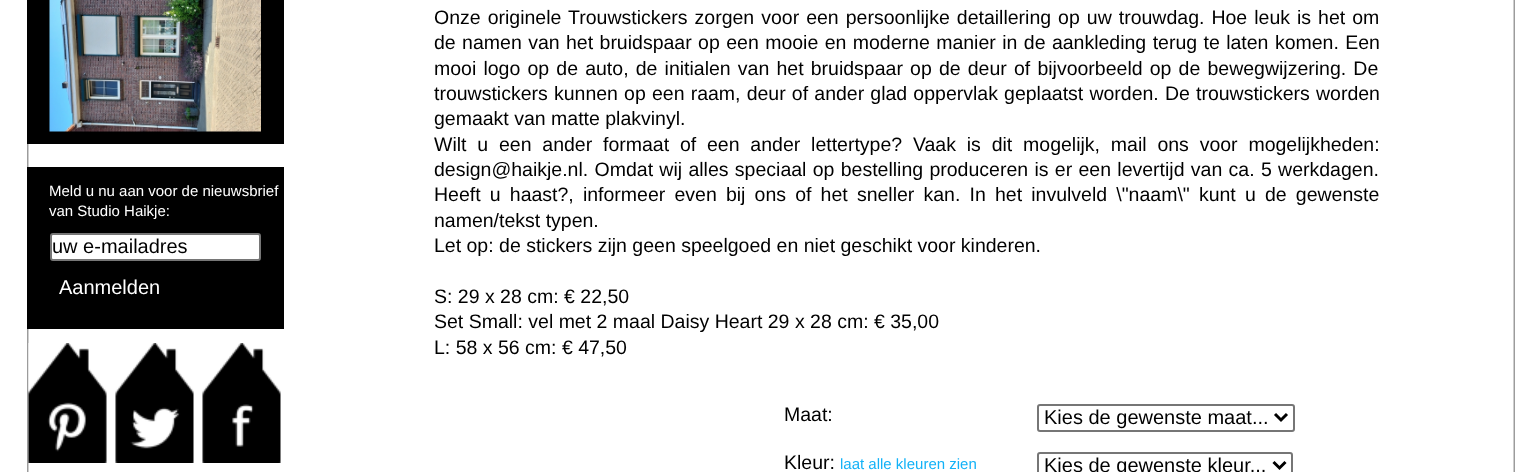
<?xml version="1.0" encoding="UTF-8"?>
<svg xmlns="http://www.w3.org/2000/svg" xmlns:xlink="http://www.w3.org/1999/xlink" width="1540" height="472">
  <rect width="100%" height="100%" fill="#ffffff" />
  <image x="27" y="0" width="1488" height="472" xlink:href="image1.png" />
  <rect x="27" width="257" height="144" fill="#000000" />
  <image x="49" y="0" width="212" height="132" xlink:href="image2.png" />
  <rect x="27" y="167" width="257" height="162" fill="#000000" />
  <rect x="51" y="234" width="209" height="26" rx="2" fill="#ffffff" stroke="#767676" stroke-width="2" />
  <image x="28" y="343" width="79" height="120" xlink:href="image3.png" />
  <image x="115" y="343" width="79" height="120" xlink:href="image4.png" />
  <image x="202" y="343" width="79" height="120" xlink:href="image5.png" />
  <rect x="1038" y="405" width="256" height="26" rx="2" fill="none" stroke="#767676" stroke-width="2" />
  <path d="M 1275 414 l 6 6 l 6 -6" fill="none" stroke="#000000" stroke-width="3" />
  <rect x="1038" y="453" width="254" height="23" rx="2" fill="none" stroke="#767676" stroke-width="2" />
  <path d="M 1273.5 462 l 6 6 l 6 -6" fill="none" stroke="#000000" stroke-width="3" />
  <text x="49" y="196" style="font-family: Liberation Sans; font-size: 15px; fill: #ffffff">Meld u nu aan voor de nieuwsbrief</text>
  <text x="49" y="216" style="font-family: Liberation Sans; font-size: 15px; fill: #ffffff">van Studio Haikje:</text>
  <text x="52" y="253" style="font-family: Liberation Sans; font-size: 20px; fill: #000000">uw e-mailadres</text>
  <text x="59" y="294" style="font-family: Liberation Sans; font-size: 20px; fill: #ffffff">Aanmelden</text>
  <text x="434" y="24" word-spacing="1.6" style="font-family: Liberation Sans; font-size: 19.5px; fill: #000000">Onze originele Trouwstickers zorgen voor een persoonlijke detaillering op uw trouwdag. Hoe leuk is het om</text>
  <text x="434" y="49" word-spacing="1" style="font-family: Liberation Sans; font-size: 19.5px; fill: #000000">de namen van het bruidspaar op een mooie en moderne manier in de aankleding terug te laten komen. Een</text>
  <text x="434" y="75" word-spacing="1.75" style="font-family: Liberation Sans; font-size: 19.5px; fill: #000000">mooi logo op de auto, de initialen van het bruidspaar op de deur of bijvoorbeeld op de bewegwijzering. De</text>
  <text x="434" y="100" word-spacing="0.75" style="font-family: Liberation Sans; font-size: 19.5px; fill: #000000">trouwstickers kunnen op een raam, deur of ander glad oppervlak geplaatst worden. De trouwstickers worden</text>
  <text x="434" y="125" style="font-family: Liberation Sans; font-size: 19.5px; fill: #000000">gemaakt van matte plakvinyl.</text>
  <text x="434" y="151" word-spacing="5.4" style="font-family: Liberation Sans; font-size: 19.5px; fill: #000000">Wilt u een ander formaat of een ander lettertype? Vaak is dit mogelijk, mail ons voor mogelijkheden:</text>
  <text x="434" y="176" word-spacing="0.9" style="font-family: Liberation Sans; font-size: 19.5px; fill: #000000">design@haikje.nl. Omdat wij alles speciaal op bestelling produceren is er een levertijd van ca. 5 werkdagen.</text>
  <text x="434" y="201" word-spacing="3.75" style="font-family: Liberation Sans; font-size: 19.5px; fill: #000000">Heeft u haast?, informeer even bij ons of het sneller kan. In het invulveld \"naam\" kunt u de gewenste</text>
  <text x="434" y="227" style="font-family: Liberation Sans; font-size: 19.5px; fill: #000000">namen/tekst typen.</text>
  <text x="434" y="252" style="font-family: Liberation Sans; font-size: 19.5px; fill: #000000">Let op: de stickers zijn geen speelgoed en niet geschikt voor kinderen.</text>
  <text x="434" y="303" style="font-family: Liberation Sans; font-size: 19.5px; fill: #000000">S: 29 x 28 cm: € 22,50</text>
  <text x="434" y="328" style="font-family: Liberation Sans; font-size: 19.5px; fill: #000000">Set Small: vel met 2 maal Daisy Heart 29 x 28 cm: € 35,00</text>
  <text x="434" y="354" style="font-family: Liberation Sans; font-size: 19.5px; fill: #000000">L: 58 x 56 cm: € 47,50</text>
  <text x="784" y="421" style="font-family: Liberation Sans; font-size: 19.5px; fill: #000000">Maat:</text>
  <text x="1044" y="424" style="font-family: Liberation Sans; font-size: 20px; fill: #000000">Kies de gewenste maat...</text>
  <text x="784" y="469" style="font-family: Liberation Sans; font-size: 19.5px; fill: #000000">Kleur:</text>
  <text x="840" y="469" style="font-family: Liberation Sans; font-size: 15px; fill: #13b2f7">laat alle kleuren zien</text>
  <text x="1044" y="472" style="font-family: Liberation Sans; font-size: 20px; fill: #000000">Kies de gewenste kleur...</text>
</svg>
